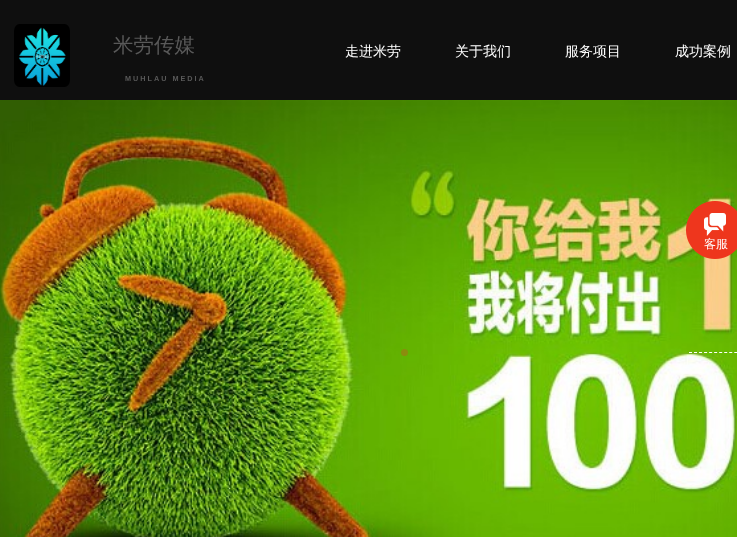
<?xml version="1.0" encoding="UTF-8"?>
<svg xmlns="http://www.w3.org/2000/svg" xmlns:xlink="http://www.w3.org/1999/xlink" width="737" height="537">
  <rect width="100%" height="100%" fill="#ffffff" />
  <rect width="737" height="100" fill="#0f0f0f" />
  <image x="14" y="24" width="56" height="63" xlink:href="image1.png" />
  <image x="0" y="100" width="737" height="437" xlink:href="image2.png" />
  <image x="401" y="349" width="7" height="7" xlink:href="image3.png" />
  <path d="M 689 352.5 h 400" fill="none" stroke="#ffffff" stroke-dasharray="3 2.03" />
  <image x="686" y="201" width="51" height="58" xlink:href="image4.png" />
  <text x="113" y="52" style="font-family: WenQuanYi Zen Hei; font-size: 20.5px; font-weight: 500; fill: #595959">米劳传媒</text>
  <text x="345" y="56" style="font-family: WenQuanYi Zen Hei; font-size: 14px; font-weight: 500; fill: #ffffff">走进米劳</text>
  <text x="455" y="56" style="font-family: WenQuanYi Zen Hei; font-size: 14px; font-weight: 500; fill: #ffffff">关于我们</text>
  <text x="565" y="56" style="font-family: WenQuanYi Zen Hei; font-size: 14px; font-weight: 500; fill: #ffffff">服务项目</text>
  <text x="675" y="56" style="font-family: WenQuanYi Zen Hei; font-size: 14px; font-weight: 500; fill: #ffffff">成功案例</text>
  <text x="125" y="81" style="font-family: Liberation Sans; font-size: 7.25px; font-weight: bold; letter-spacing: 2px; fill: #595959">MUHLAU MEDIA</text>
  <text x="704" y="248" style="font-family: WenQuanYi Zen Hei; font-size: 12px; font-weight: 500; fill: #ffffff">客服</text>
</svg>
